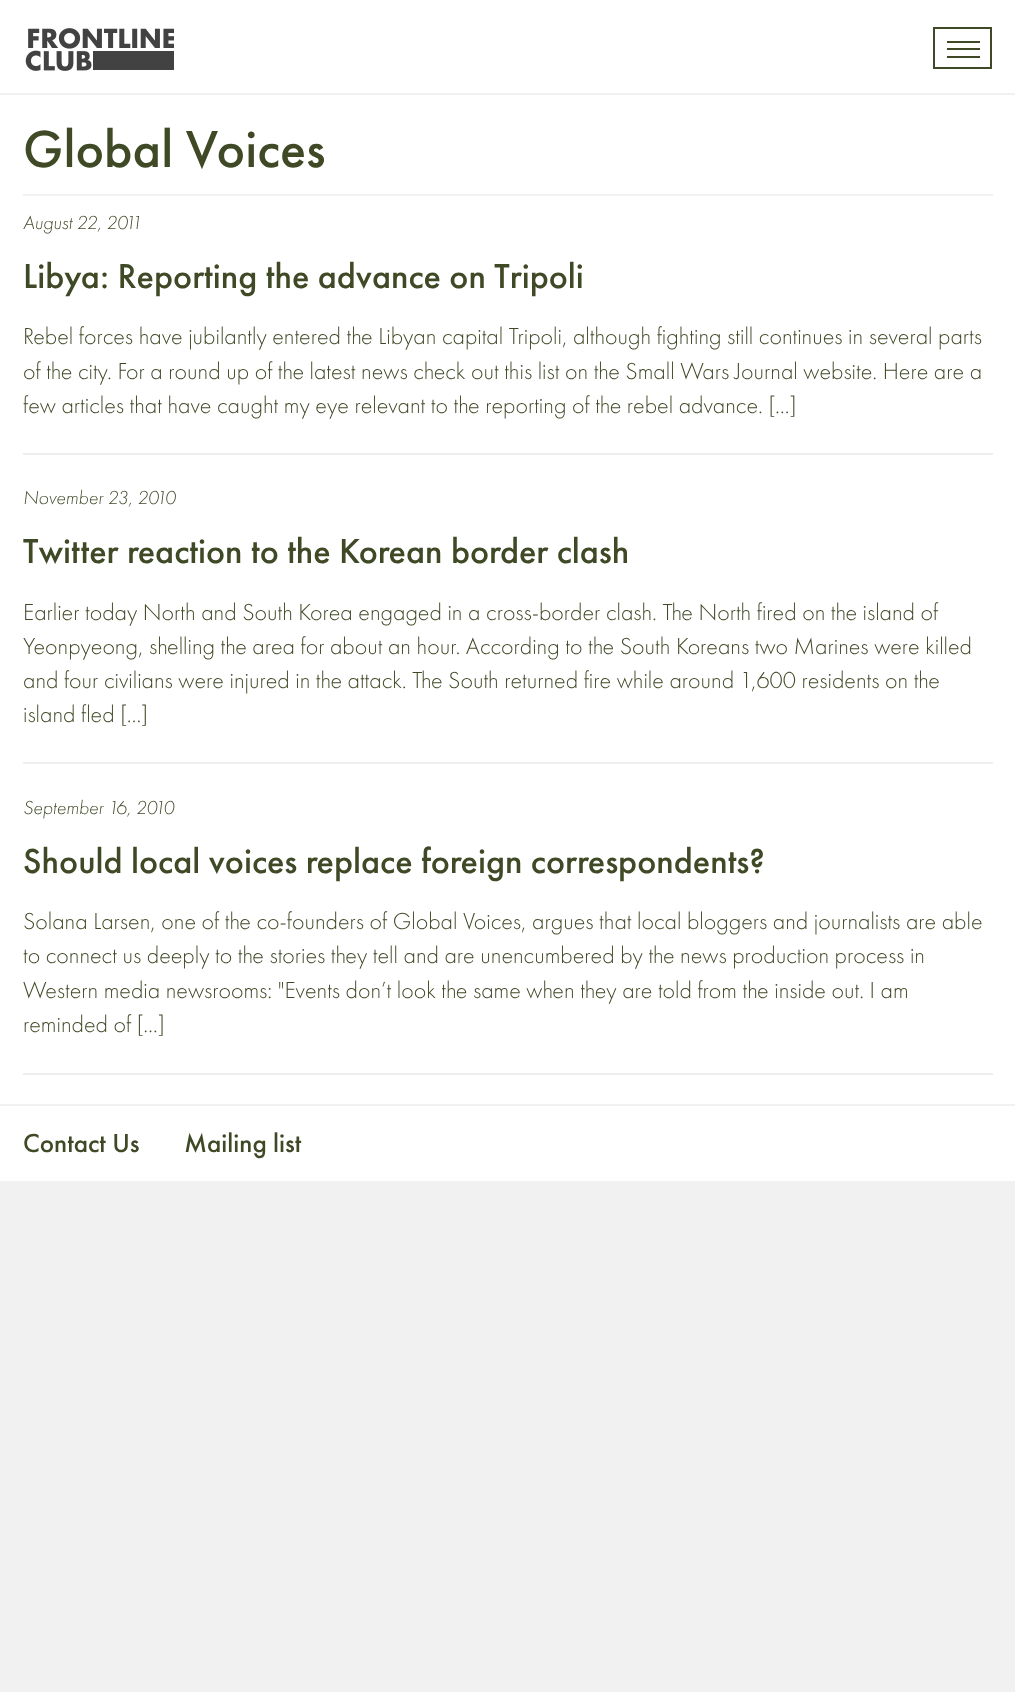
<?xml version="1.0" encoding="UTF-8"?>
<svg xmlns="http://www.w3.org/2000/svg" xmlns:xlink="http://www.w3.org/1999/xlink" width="1015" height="1692">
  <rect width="100%" height="100%" fill="#f1f1f1" />
  <rect width="1015" height="93" fill="#ffffff" />
  <image x="25" y="28" width="149" height="43" xlink:href="image1.png" />
  <rect x="934" y="28" width="57" height="40" fill="none" stroke="#3f4926" stroke-width="2" />
  <rect x="947" y="41" width="33" height="2" fill="#3f4926" />
  <rect x="947" y="48" width="33" height="2" fill="#3f4926" />
  <rect x="947" y="56" width="33" height="2" fill="#3f4926" />
  <rect y="95" width="1015" height="1009" fill="#ffffff" />
  <rect x="23" y="194" width="970" height="2" fill="#f1f1f1" />
  <rect x="23" y="453" width="970" height="2" fill="#eeeeee" />
  <rect x="23" y="762" width="970" height="2" fill="#eeeeee" />
  <rect x="23" y="1073" width="970" height="2" fill="#eeeeee" />
  <rect y="1106" width="1015" height="75" fill="#ffffff" />
  <text x="23" y="167" style="font-family: Futura PT; font-size: 54px; font-weight: 500; fill: #3f4926">Global Voices</text>
  <text x="23" y="229" style="font-family: Futura PT; font-size: 19.5px; font-weight: 300; font-style: italic; fill: #3f4926">August 22, 2011</text>
  <text x="23" y="288" style="font-family: Futura PT; font-size: 36px; font-weight: 500; fill: #3f4926">Libya: Reporting the advance on Tripoli</text>
  <text x="23" y="344" style="font-family: Futura PT; font-size: 24px; font-weight: 300; fill: #3f4926">Rebel forces have jubilantly entered the Libyan capital Tripoli, although fighting still continues in several parts</text>
  <text x="23" y="379" style="font-family: Futura PT; font-size: 24px; font-weight: 300; fill: #3f4926">of the city. For a round up of the latest news check out this list on the Small Wars Journal website. Here are a</text>
  <text x="23" y="413" style="font-family: Futura PT; font-size: 24px; font-weight: 300; fill: #3f4926">few articles that have caught my eye relevant to the reporting of the rebel advance. […]</text>
  <text x="23" y="504" style="font-family: Futura PT; font-size: 19.5px; font-weight: 300; font-style: italic; fill: #3f4926">November 23, 2010</text>
  <text x="23" y="563" style="font-family: Futura PT; font-size: 36px; font-weight: 500; fill: #3f4926">Twitter reaction to the Korean border clash</text>
  <text x="23" y="620" style="font-family: Futura PT; font-size: 24px; font-weight: 300; fill: #3f4926">Earlier today North and South Korea engaged in a cross-border clash. The North fired on the island of</text>
  <text x="23" y="654" style="font-family: Futura PT; font-size: 24px; font-weight: 300; fill: #3f4926">Yeonpyeong, shelling the area for about an hour. According to the South Koreans two Marines were killed</text>
  <text x="23" y="688" style="font-family: Futura PT; font-size: 24px; font-weight: 300; fill: #3f4926">and four civilians were injured in the attack. The South returned fire while around 1,600 residents on the</text>
  <text x="23" y="722" style="font-family: Futura PT; font-size: 24px; font-weight: 300; fill: #3f4926">island fled […]</text>
  <text x="23" y="814" style="font-family: Futura PT; font-size: 19.5px; font-weight: 300; font-style: italic; fill: #3f4926">September 16, 2010</text>
  <text x="23" y="873" style="font-family: Futura PT; font-size: 36px; font-weight: 500; fill: #3f4926">Should local voices replace foreign correspondents?</text>
  <text x="23" y="929" style="font-family: Futura PT; font-size: 24px; font-weight: 300; fill: #3f4926">Solana Larsen, one of the co-founders of Global Voices, argues that local bloggers and journalists are able</text>
  <text x="23" y="963" style="font-family: Futura PT; font-size: 24px; font-weight: 300; fill: #3f4926">to connect us deeply to the stories they tell and are unencumbered by the news production process in</text>
  <text x="23" y="998" style="font-family: Futura PT; font-size: 24px; font-weight: 300; fill: #3f4926">Western media newsrooms: "Events don’t look the same when they are told from the inside out. I am</text>
  <text x="23" y="1032" style="font-family: Futura PT; font-size: 24px; font-weight: 300; fill: #3f4926">reminded of […]</text>
  <text x="23" y="1152" style="font-family: Futura PT; font-size: 27px; font-weight: 500; fill: #3f4926">Contact Us</text>
  <text x="184" y="1152" style="font-family: Futura PT; font-size: 27px; font-weight: 500; fill: #3f4926">Mailing list</text>
</svg>
